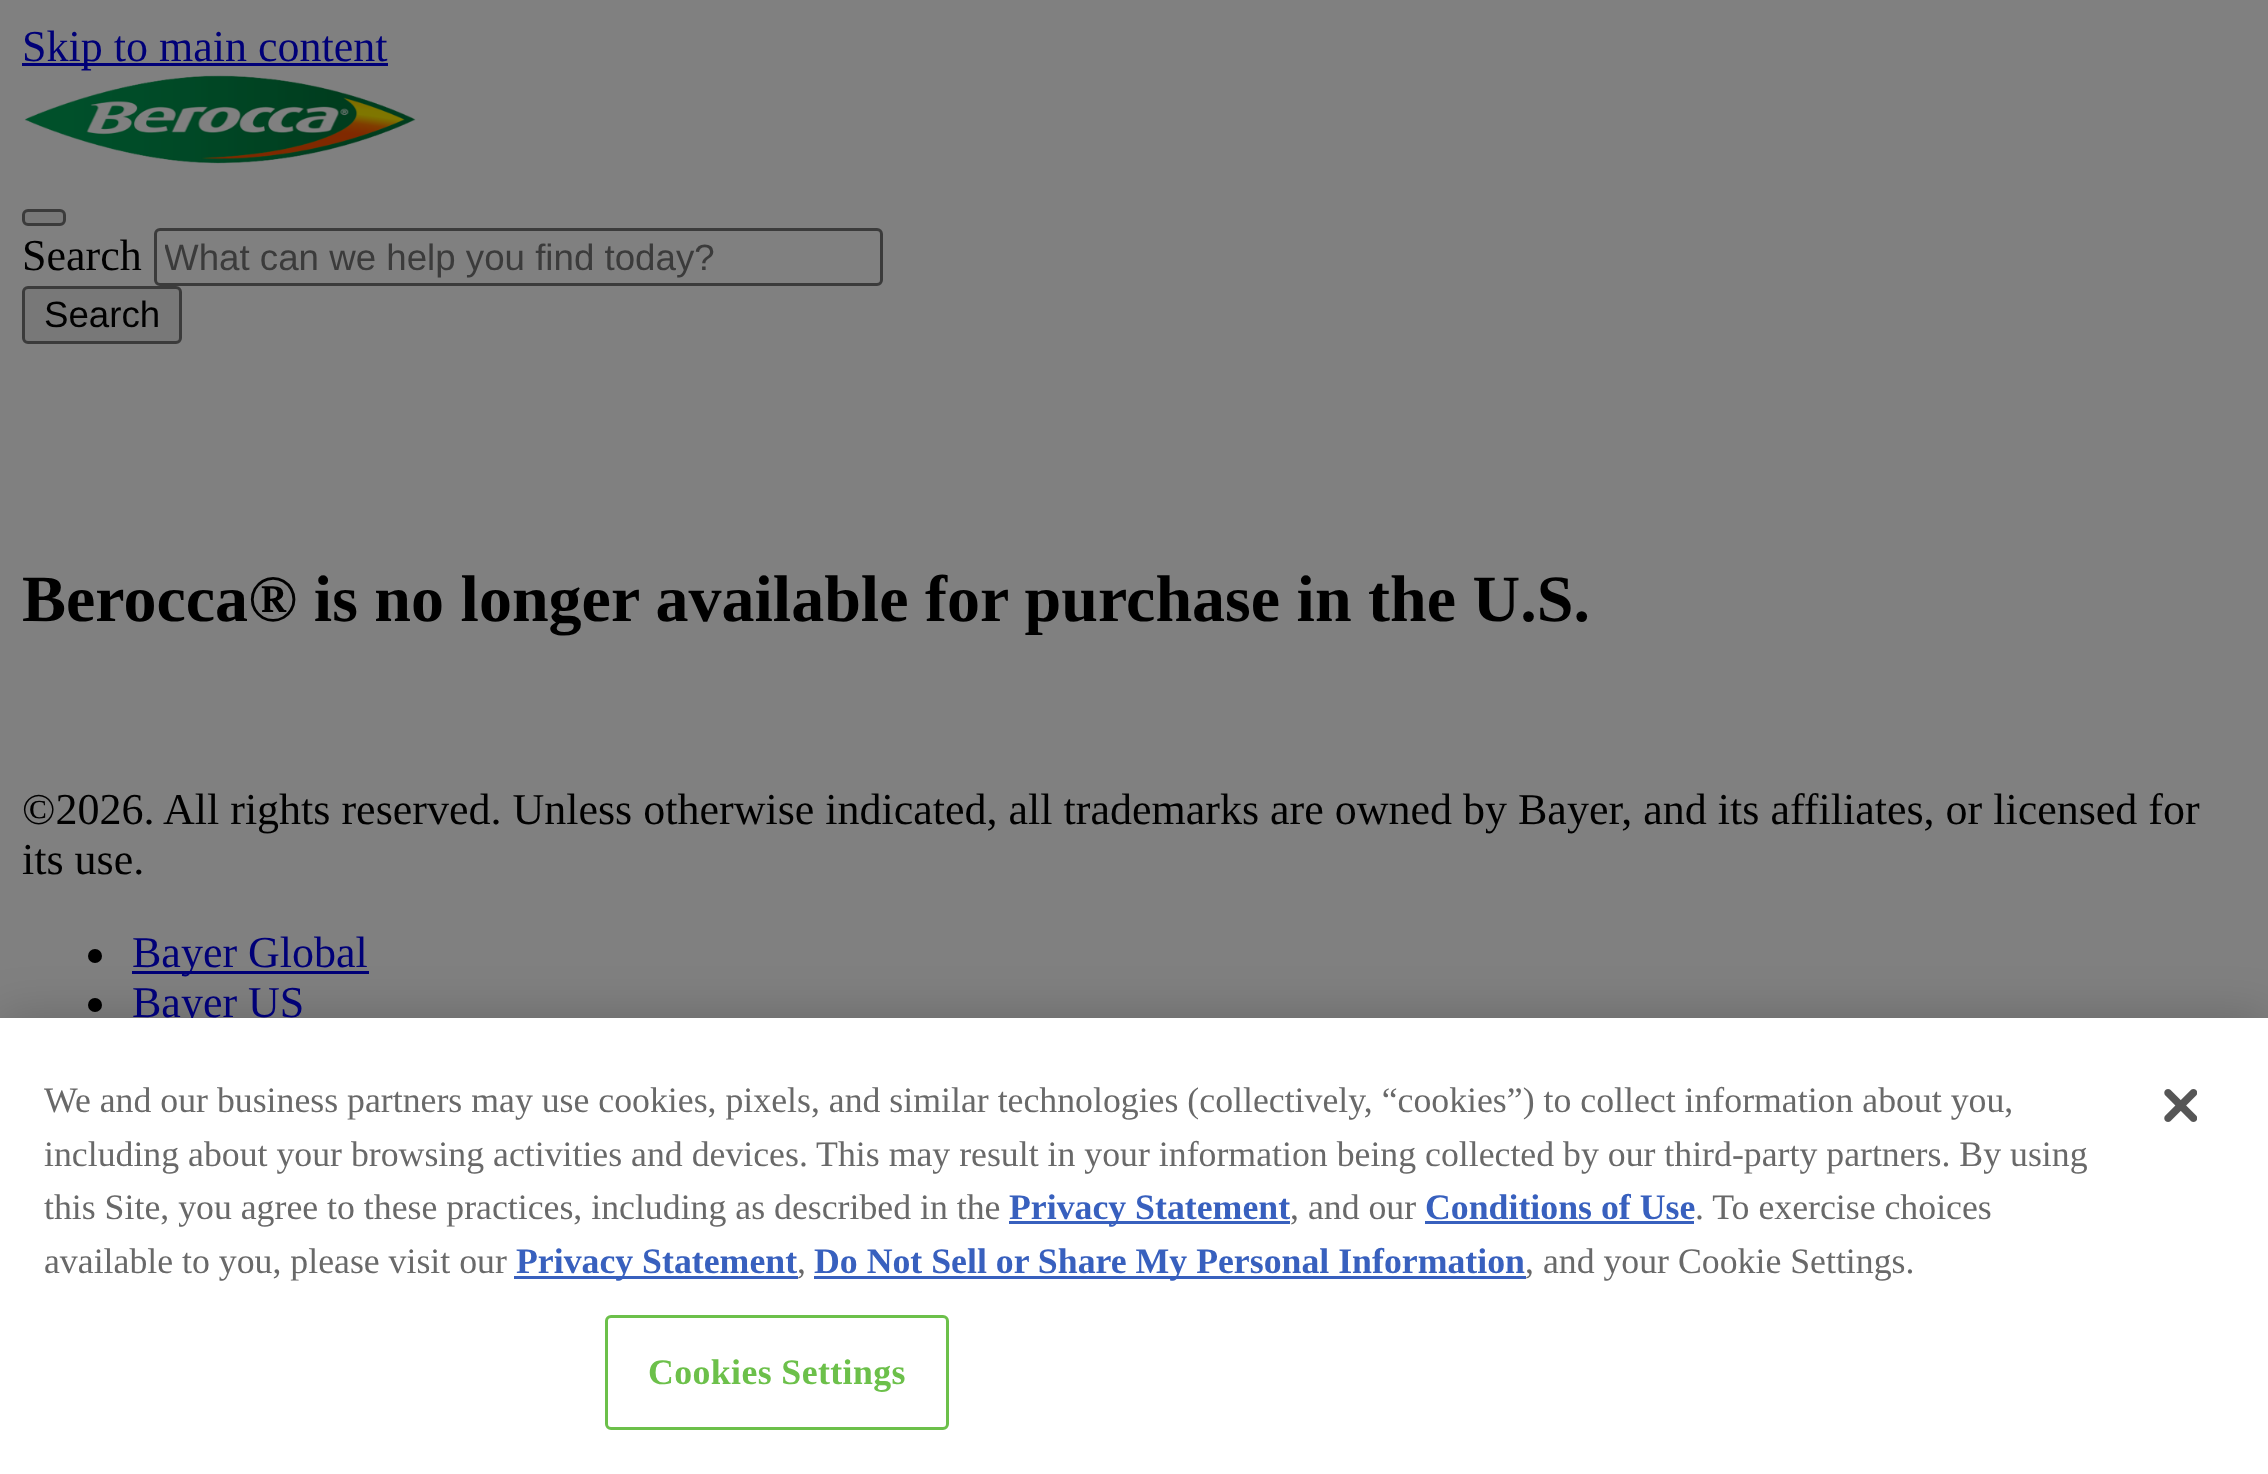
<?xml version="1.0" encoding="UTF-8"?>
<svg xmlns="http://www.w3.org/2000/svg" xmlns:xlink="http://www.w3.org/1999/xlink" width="2268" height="1474">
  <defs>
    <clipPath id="clip1"><rect x="165" y="237" width="707" height="41" /></clipPath>
  </defs>
  <rect width="100%" height="100%" fill="#808080" />
  <rect x="22" y="63" width="366" height="3" fill="#000077" />
  <image x="24" y="75" width="392" height="89" xlink:href="image1.png" />
  <rect x="23.5" y="210.5" width="41" height="14" rx="4.5" fill="#787878" stroke="#3b3b3b" stroke-width="3" />
  <rect x="155.5" y="229.5" width="726" height="55" rx="4.5" fill="none" stroke="#3b3b3b" stroke-width="3" />
  <rect x="23.5" y="287.5" width="157" height="55" rx="4.5" fill="#787878" stroke="#3b3b3b" stroke-width="3" />
  <circle cx="95" cy="956" r="7" fill="#000000" />
  <rect x="132" y="971" width="237" height="3" fill="#000077" />
  <circle cx="95" cy="1005" r="7" fill="#000000" />
  <rect y="1018" width="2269" height="456" fill="#000000" fill-opacity="0.2" filter="blur(25px)" />
  <text x="22" y="61" style="font-family: Liberation Serif; font-size: 44px; fill: #000077">Skip to main content</text>
  <text x="22" y="270" style="font-family: Liberation Serif; font-size: 44px; fill: #000000">Search</text>
  <g clip-path="url(#clip1)">
    <text x="164" y="270" style="font-family: Liberation Sans; font-size: 36.7px; fill: #3b3b3b">What can we help you find today?</text>
  </g>
  <text x="44" y="327" style="font-family: Liberation Sans; font-size: 36.7px; fill: #000000">Search</text>
  <text x="22" y="621" style="font-family: Liberation Serif; font-size: 66px; font-weight: bold; fill: #000000">Berocca® is no longer available for purchase in the U.S.</text>
  <text x="22" y="824" style="font-family: Liberation Serif; font-size: 44px; fill: #000000">©2026. All rights reserved. Unless otherwise indicated, all trademarks are owned by Bayer, and its affiliates, or licensed for</text>
  <text x="22" y="874" style="font-family: Liberation Serif; font-size: 44px; fill: #000000">its use.</text>
  <text x="132" y="967" style="font-family: Liberation Serif; font-size: 44px; fill: #000077">Bayer Global</text>
  <text x="132" y="1017" style="font-family: Liberation Serif; font-size: 44px; fill: #000077">Bayer US</text>
  <rect y="1018" width="2268" height="456" fill="#ffffff" />
  <text x="44" y="1112" style="font-family: Liberation Serif; font-size: 35.77px; fill: #696969">We and our business partners may use cookies, pixels, and similar technologies (collectively, “cookies”) to collect information about you,</text>
  <text x="44" y="1166" style="font-family: Liberation Serif; font-size: 35.77px; fill: #696969">including about your browsing activities and devices. This may result in your information being collected by our third-party partners. By using</text>
  <text x="44" y="1219" style="font-family: Liberation Serif; font-size: 35.77px; fill: #696969">this Site, you agree to these practices, including as described in the</text>
  <rect x="1009" y="1221" width="281" height="3" fill="#3860be" />
  <text x="1009" y="1219" style="font-family: Liberation Serif; font-size: 35.77px; font-weight: bold; fill: #3860be">Privacy Statement</text>
  <text x="1290" y="1219" style="font-family: Liberation Serif; font-size: 35.77px; fill: #696969">, and our</text>
  <text x="1425" y="1219" style="font-family: Liberation Serif; font-size: 35.77px; font-weight: bold; fill: #3860be">Conditions of Use</text>
  <rect x="1425" y="1221" width="269" height="3" fill="#3860be" />
  <text x="1695" y="1219" style="font-family: Liberation Serif; font-size: 35.77px; fill: #696969">. To exercise choices</text>
  <text x="44" y="1273" style="font-family: Liberation Serif; font-size: 35.77px; fill: #696969">available to you, please visit our</text>
  <rect x="514" y="1276" width="284" height="3" fill="#3860be" />
  <text x="516" y="1273" style="font-family: Liberation Serif; font-size: 35.77px; font-weight: bold; fill: #3860be">Privacy Statement</text>
  <text x="797" y="1273" style="font-family: Liberation Serif; font-size: 35.77px; fill: #696969">,</text>
  <rect x="814" y="1276" width="712" height="3" fill="#3860be" />
  <text x="814" y="1273" style="font-family: Liberation Serif; font-size: 35.77px; font-weight: bold; fill: #3860be">Do Not Sell or Share My Personal Information</text>
  <text x="1525" y="1273" style="font-family: Liberation Serif; font-size: 35.77px; fill: #696969">, and your Cookie Settings.</text>
  <rect x="606.5" y="1316.5" width="341" height="112" rx="4.5" fill="none" stroke="#6cc04a" stroke-width="3" />
  <text x="648" y="1384" style="font-family: Liberation Serif; font-size: 35.77px; font-weight: bold; letter-spacing: 0.4px; fill: #6cc04a">Cookies Settings</text>
  <image x="2164" y="1089" width="33" height="33" xlink:href="image2.png" />
</svg>
